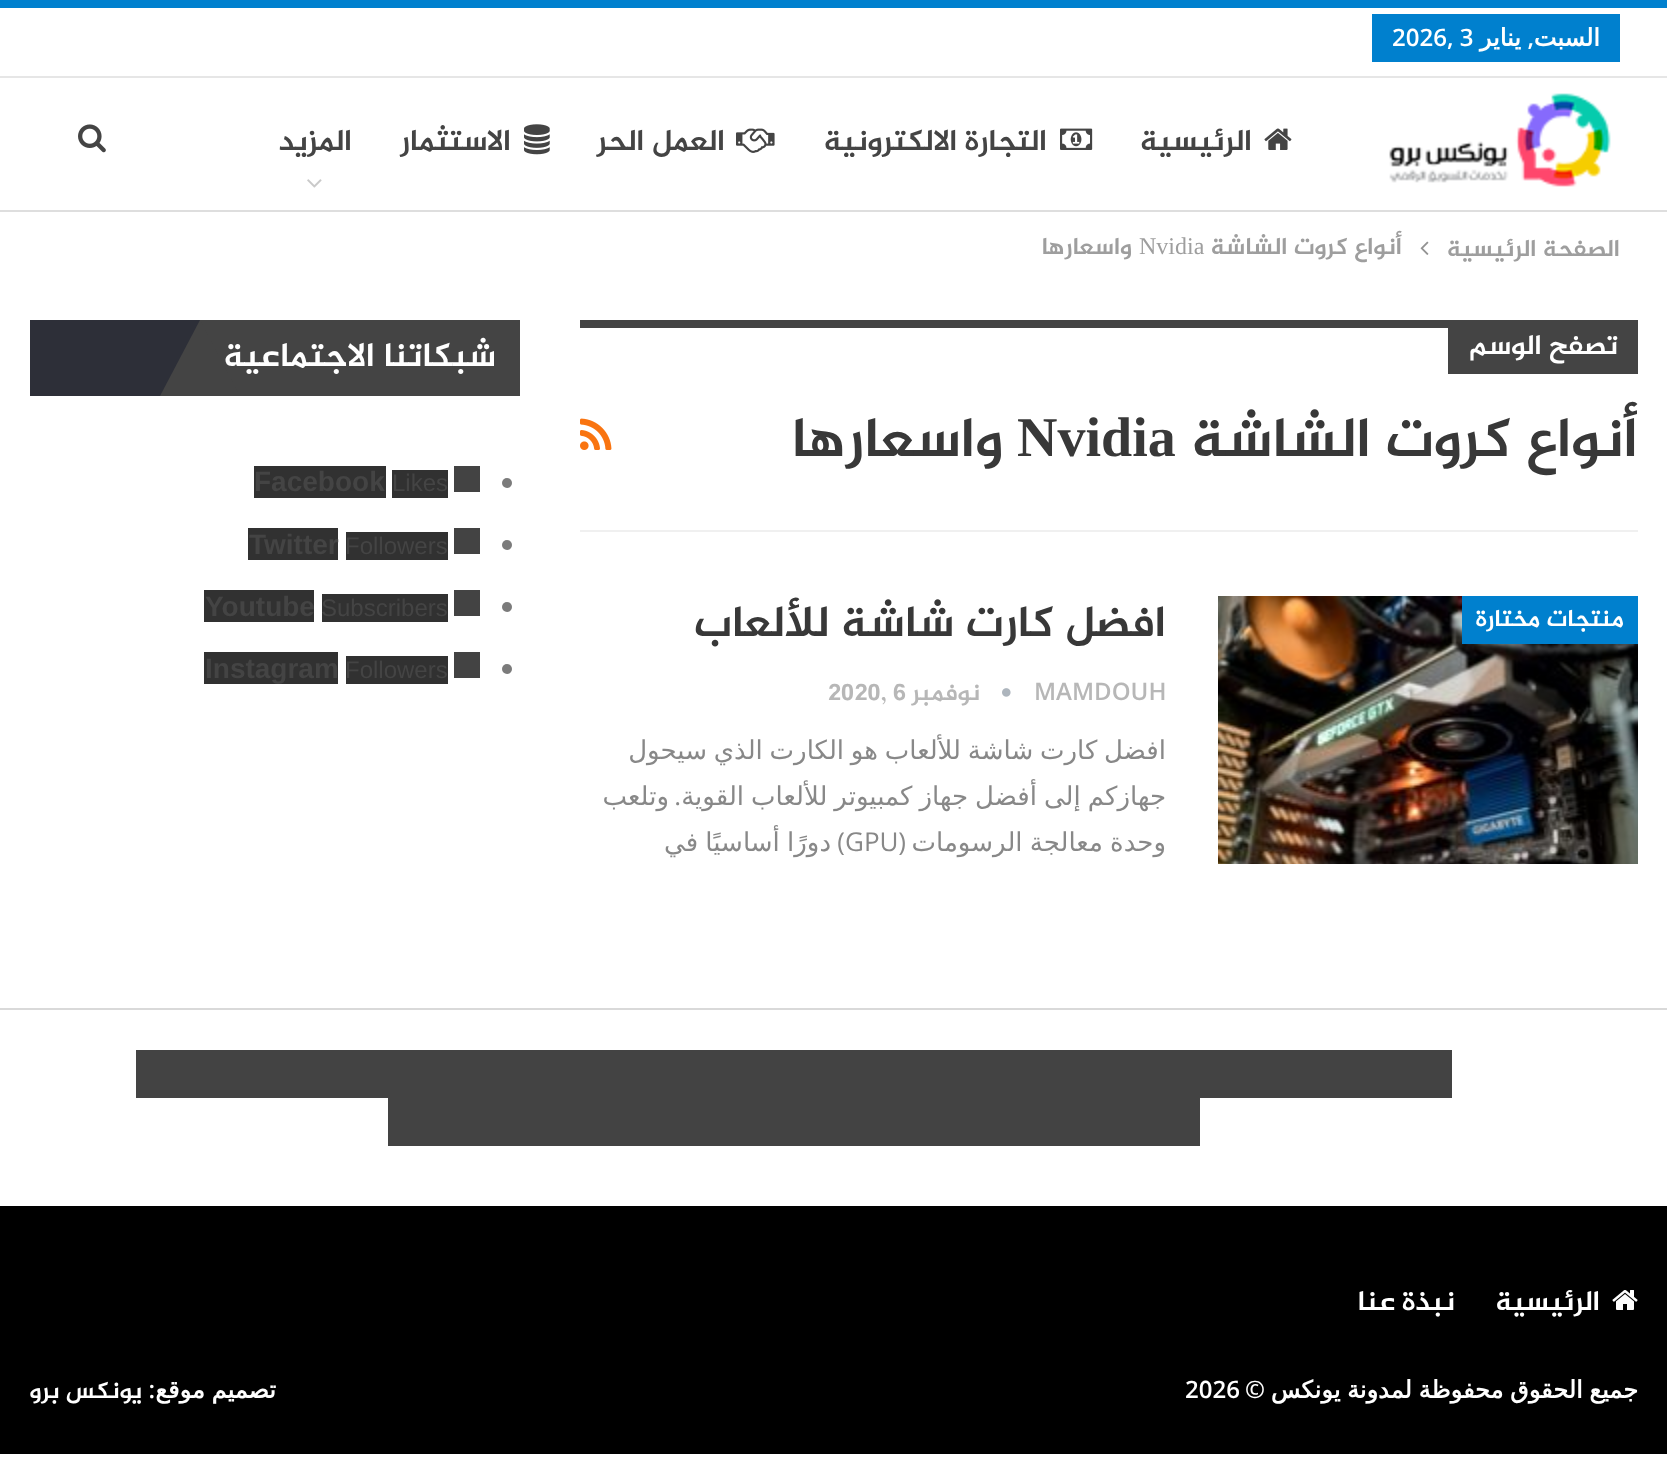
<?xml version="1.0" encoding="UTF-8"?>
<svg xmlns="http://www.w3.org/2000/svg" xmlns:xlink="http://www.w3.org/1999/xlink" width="1667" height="1476">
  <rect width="100%" height="100%" fill="#ffffff" />
  <rect width="1667" height="8" fill="#0080ce" />
  <rect y="210" width="1667" height="2" fill="#dedede" />
  <rect y="76" width="1667" height="2" fill="#e6e6e6" />
  <rect x="1372" y="14" width="248" height="48" fill="#0080ce" />
  <image x="1389" y="93" width="222" height="94" xlink:href="image1.png" />
  <image x="1264" y="128" width="28" height="22" xlink:href="image2.png" />
  <image x="1060" y="128" width="33" height="22" xlink:href="image3.png" />
  <image x="736" y="128" width="39" height="25" xlink:href="image4.png" />
  <image x="524" y="124" width="26" height="31" xlink:href="image5.png" />
  <image x="307" y="179" width="15" height="9" xlink:href="image6.png" />
  <image x="78" y="124" width="28" height="29" xlink:href="image7.png" />
  <image x="1420" y="241" width="9" height="14" xlink:href="image8.png" />
  <rect x="580" y="530" width="1058" height="2" fill="#f0f0f0" />
  <rect x="580" y="320" width="1058" height="8" fill="#444444" />
  <rect x="1448" y="328" width="190" height="46" fill="#444444" />
  <image x="580" y="418" width="32" height="32" xlink:href="image9.png" />
  <image x="1218" y="596" width="420" height="268" xlink:href="image10.png" />
  <rect x="1462" y="596" width="176" height="48" fill="#0080ce" />
  <image x="1002" y="688" width="9" height="9" xlink:href="image11.png" />
  <rect x="30" y="320" width="170" height="76" fill="#2d2f38" />
  <rect x="200" y="320" width="320" height="76" fill="#444444" />
  <path d="M 240 396 h -80 l 40 -76 z" fill="#444444" />
  <circle cx="507" cy="483" r="5" fill="#7b7b7b" />
  <rect x="454" y="466" width="26" height="26" fill="#434343" />
  <rect x="392" y="470" width="56" height="28" fill="#313131" />
  <rect x="254" y="466" width="132" height="32" fill="#313131" />
  <circle cx="507" cy="545" r="5" fill="#7b7b7b" />
  <rect x="454" y="528" width="26" height="26" fill="#434343" />
  <rect x="346" y="532" width="102" height="28" fill="#313131" />
  <rect x="248" y="528" width="90" height="32" fill="#313131" />
  <circle cx="507" cy="607" r="5" fill="#7b7b7b" />
  <rect x="454" y="590" width="26" height="26" fill="#434343" />
  <rect x="322" y="594" width="126" height="28" fill="#313131" />
  <rect x="204" y="590" width="110" height="32" fill="#313131" />
  <circle cx="507" cy="669" r="5" fill="#7b7b7b" />
  <rect x="454" y="652" width="26" height="26" fill="#434343" />
  <rect x="346" y="656" width="102" height="28" fill="#313131" />
  <rect x="204" y="652" width="134" height="32" fill="#313131" />
  <rect y="1008" width="1667" height="2" fill="#d9d9d9" />
  <rect x="136" y="1050" width="1316" height="48" fill="#434343" />
  <rect x="388" y="1098" width="812" height="48" fill="#434343" />
  <rect y="1206" width="1667" height="248" fill="#000000" />
  <image x="1612" y="1290" width="26" height="20" xlink:href="image12.png" />
  <text x="1600" y="46" style="font-family: DejaVu Sans; font-size: 24px; font-weight: bold; direction: rtl; fill: #ffffff">السبت</text>
  <text x="1534" y="46" style="font-family: Open Sans; font-size: 24px; font-weight: 600; direction: rtl; fill: #ffffff">,</text>
  <text x="1521" y="46" style="font-family: DejaVu Sans; font-size: 24px; font-weight: bold; direction: rtl; fill: #ffffff">يناير</text>
  <text x="1392" y="46" style="font-family: Open Sans; font-size: 24px; font-weight: 600; fill: #ffffff">2026, 3</text>
  <text x="1252" y="150" style="font-family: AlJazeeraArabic; font-size: 30px; font-weight: bold; direction: rtl; fill: #444444">الرئيسية</text>
  <text x="1047" y="150" style="font-family: AlJazeeraArabic; font-size: 30px; font-weight: bold; direction: rtl; fill: #444444">التجارة الالكترونية</text>
  <text x="725" y="150" style="font-family: AlJazeeraArabic; font-size: 30px; font-weight: bold; direction: rtl; fill: #444444">العمل الحر</text>
  <text x="511" y="150" style="font-family: AlJazeeraArabic; font-size: 30px; font-weight: bold; direction: rtl; fill: #444444">الاستثمار</text>
  <text x="352" y="150" style="font-family: AlJazeeraArabic; font-size: 30px; font-weight: bold; direction: rtl; fill: #444444">المزيد</text>
  <text x="1620" y="256" style="font-family: AlJazeeraArabic; font-size: 24px; font-weight: bold; direction: rtl; fill: #9e9e9e">الصفحة الرئيسية</text>
  <text x="1402" y="254" style="font-family: AlJazeeraArabic; font-size: 24px; font-weight: bold; direction: rtl; fill: #9e9e9e">أنواع كروت الشاشة</text>
  <text x="1139" y="254" style="font-family: Liberation Serif; font-size: 24px; fill: #9e9e9e">Nvidia</text>
  <text x="1132" y="254" style="font-family: AlJazeeraArabic; font-size: 24px; font-weight: bold; direction: rtl; fill: #9e9e9e">واسعارها</text>
  <text x="1618" y="354" style="font-family: AlJazeeraArabic; font-size: 28px; font-weight: bold; direction: rtl; fill: #ffffff">تصفح الوسم</text>
  <text x="1638" y="456" style="font-family: AlJazeeraArabic; font-size: 56px; font-weight: bold; direction: rtl; fill: #383838">أنواع كروت الشاشة</text>
  <text x="1017" y="456" style="font-family: Liberation Serif; font-size: 56px; font-weight: bold; fill: #383838">Nvidia</text>
  <text x="1003" y="456" style="font-family: AlJazeeraArabic; font-size: 56px; font-weight: bold; direction: rtl; fill: #383838">واسعارها</text>
  <text x="1624" y="626" style="font-family: AlJazeeraArabic; font-size: 24px; font-weight: bold; direction: rtl; fill: #ffffff">منتجات مختارة</text>
  <text x="1166" y="636" style="font-family: AlJazeeraArabic; font-size: 44px; font-weight: bold; direction: rtl; fill: #383838">افضل كارت شاشة للألعاب</text>
  <text x="1034" y="700" style="font-family: Open Sans; font-size: 24px; font-weight: 600; fill: #b7b7b7">MAMDOUH</text>
  <text x="980" y="700" style="font-family: AlJazeeraArabic; font-size: 24px; font-weight: bold; direction: rtl; fill: #b7b7b7">نوفمبر</text>
  <text x="828" y="700" style="font-family: AlJazeeraArabic; font-size: 24px; font-weight: bold; fill: #b7b7b7">2020, 6</text>
  <text x="1166" y="759" word-spacing="-1.5" style="font-family: DejaVu Sans; font-size: 26px; direction: rtl; fill: #888888">افضل كارت شاشة للألعاب هو الكارت الذي سيحول</text>
  <text x="1166" y="805" word-spacing="-1.25" style="font-family: DejaVu Sans; font-size: 26px; direction: rtl; fill: #888888">جهازكم إلى أفضل جهاز كمبيوتر للألعاب القوية</text>
  <text x="681" y="805" style="font-family: Open Sans; font-size: 26px; direction: rtl; fill: #888888">.</text>
  <text x="669" y="805" style="font-family: DejaVu Sans; font-size: 26px; direction: rtl; fill: #888888">وتلعب</text>
  <text x="1166" y="851" word-spacing="-1" style="font-family: DejaVu Sans; font-size: 26px; direction: rtl; fill: #888888">وحدة معالجة الرسومات</text>
  <text x="906" y="851" style="font-family: Open Sans; font-size: 26px; direction: rtl; fill: #888888">(</text>
  <text x="845" y="851" style="font-family: Open Sans; font-size: 26px; fill: #888888">GPU</text>
  <text x="845" y="851" style="font-family: Open Sans; font-size: 26px; direction: rtl; fill: #888888">)</text>
  <text x="831" y="851" word-spacing="-1" style="font-family: DejaVu Sans; font-size: 26px; direction: rtl; fill: #888888">دورًا أساسيًا في</text>
  <text x="496" y="366" style="font-family: AlJazeeraArabic; font-size: 34px; font-weight: bold; direction: rtl; fill: #ffffff">شبكاتنا الاجتماعية</text>
  <text x="392" y="491" style="font-family: Liberation Sans; font-size: 24px; fill: #444444">Likes</text>
  <text x="254" y="491" style="font-family: Liberation Sans; font-size: 28px; font-weight: bold; fill: #444444">Facebook</text>
  <text x="345" y="554" style="font-family: Liberation Sans; font-size: 24px; fill: #444444">Followers</text>
  <text x="249" y="554" style="font-family: Liberation Sans; font-size: 28px; font-weight: bold; fill: #444444">Twitter</text>
  <text x="321" y="616" style="font-family: Liberation Sans; font-size: 24px; fill: #444444">Subscribers</text>
  <text x="205" y="616" style="font-family: Liberation Sans; font-size: 28px; font-weight: bold; fill: #444444">Youtube</text>
  <text x="345" y="678" style="font-family: Liberation Sans; font-size: 24px; fill: #444444">Followers</text>
  <text x="205" y="678" style="font-family: Liberation Sans; font-size: 28px; font-weight: bold; fill: #444444">Instagram</text>
  <text x="1600" y="1310" style="font-family: AlJazeeraArabic; font-size: 28px; font-weight: bold; direction: rtl; fill: #ffffff">الرئيسية</text>
  <text x="1455" y="1310" style="font-family: AlJazeeraArabic; font-size: 28px; font-weight: bold; direction: rtl; fill: #ffffff">نبذة عنا</text>
  <text x="1638" y="1398" word-spacing="-1" style="font-family: DejaVu Sans; font-size: 24px; font-weight: bold; direction: rtl; fill: #ffffff">جميع الحقوق محفوظة لمدونة يونكس</text>
  <text x="1265" y="1398" style="font-family: Open Sans; font-size: 24px; font-weight: 600; direction: rtl; fill: #ffffff">©</text>
  <text x="1185" y="1398" style="font-family: Open Sans; font-size: 24px; font-weight: 600; fill: #ffffff">2026</text>
  <text x="276" y="1398" word-spacing="-1" style="font-family: DejaVu Sans; font-size: 24px; font-weight: bold; direction: rtl; fill: #ffffff">تصميم موقع</text>
  <text x="155" y="1398" style="font-family: Open Sans; font-size: 24px; font-weight: 600; direction: rtl; fill: #ffffff">:</text>
  <text x="142" y="1398" style="font-family: AlJazeeraArabic; font-size: 24px; font-weight: bold; direction: rtl; fill: #ffffff">يونكس برو</text>
</svg>
